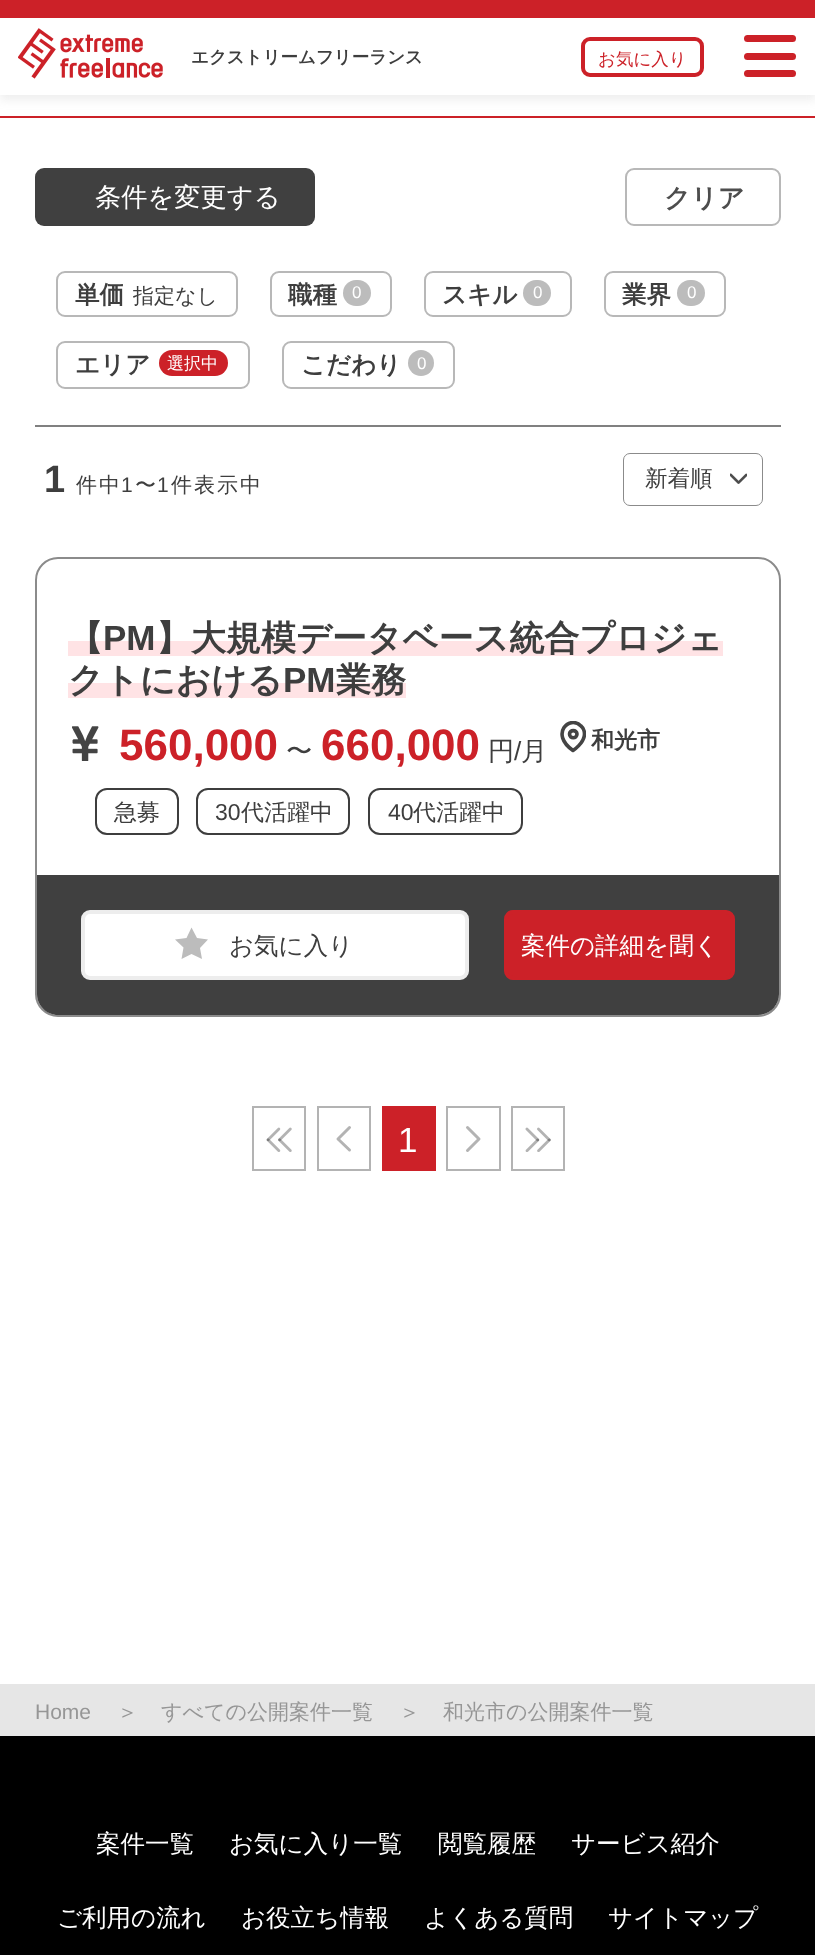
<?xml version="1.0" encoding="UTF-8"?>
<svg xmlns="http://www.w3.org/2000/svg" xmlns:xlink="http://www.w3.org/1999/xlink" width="815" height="1955">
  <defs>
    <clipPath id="clip1"><rect x="560" y="721" width="26" height="32" /></clipPath>
  </defs>
  <rect width="100%" height="100%" fill="#ffffff" />
  <rect y="5" width="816" height="95" fill="#989898" fill-opacity="0.16" filter="blur(5px)" />
  <rect y="18" width="815" height="77" fill="#ffffff" />
  <rect width="815" height="18" fill="#cc2128" />
  <image x="18" y="28" width="145" height="51" xlink:href="image1.png" />
  <rect x="583" y="39" width="119" height="36" rx="7" fill="none" stroke="#cc2128" stroke-width="4" />
  <rect x="744" y="35" width="52" height="7" rx="3.5" fill="#cc2128" />
  <rect x="744" y="53" width="52" height="7" rx="3.5" fill="#cc2128" />
  <rect x="744" y="70" width="52" height="7" rx="3.5" fill="#cc2128" />
  <rect x="35" y="425" width="746" height="2" fill="#808080" />
  <rect x="35" y="168" width="280" height="58" rx="9" fill="#404040" />
  <rect x="626" y="169" width="154" height="56" rx="8" fill="none" stroke="#b8b8b8" stroke-width="2" />
  <rect x="57" y="272" width="180" height="44" rx="8" fill="none" stroke="#b8b8b8" stroke-width="2" />
  <rect x="271" y="272" width="120" height="44" rx="8" fill="none" stroke="#b8b8b8" stroke-width="2" />
  <rect x="343" y="280" width="28" height="26" rx="13" fill="#bcbcbc" />
  <rect x="425" y="272" width="146" height="44" rx="8" fill="none" stroke="#b8b8b8" stroke-width="2" />
  <rect x="523" y="280" width="28" height="26" rx="13" fill="#bcbcbc" />
  <rect x="605" y="272" width="120" height="44" rx="8" fill="none" stroke="#b8b8b8" stroke-width="2" />
  <rect x="677" y="280" width="28" height="26" rx="13" fill="#bcbcbc" />
  <rect x="57" y="342" width="192" height="46" rx="8" fill="none" stroke="#b8b8b8" stroke-width="2" />
  <rect x="159" y="350" width="69" height="26" rx="13" fill="#cc2128" />
  <rect x="283" y="342" width="171" height="46" rx="8" fill="none" stroke="#b8b8b8" stroke-width="2" />
  <circle cx="421" cy="363" r="13" fill="#bcbcbc" />
  <rect y="116" width="815" height="2" fill="#cc2128" />
  <image x="730" y="473" width="17" height="11" xlink:href="image2.png" />
  <rect x="623.5" y="453.5" width="139" height="52" rx="6.5" fill="none" stroke="#8b8b8b" />
  <rect x="36" y="558" width="744" height="458" rx="22" fill="none" stroke="#8b8b8b" stroke-width="2" />
  <rect x="68" y="641" width="655" height="15" fill="#ffe3e5" />
  <rect x="68" y="683" width="338" height="15" fill="#ffe3e5" />
  <image x="72" y="726" width="27" height="35" xlink:href="image3.png" />
  <g clip-path="url(#clip1)">
    <path d="M 584.5 734 c 0 9 -11.5 16.5 -11.5 16.5 c -23.5 -16.5 -3.5 -36 8 -24.5 c 2.5 2 3.5 5 3.5 8 z" fill="none" stroke="#444444" stroke-width="3.6" stroke-linecap="round" stroke-linejoin="round" />
  </g>
  <path d="M 577 734 c 0 5 -7.5 5 -7.5 0 c 0 -4.5 7.5 -4.5 7.5 0 z" fill="none" stroke="#444444" stroke-width="3.6" stroke-linecap="round" stroke-linejoin="round" />
  <rect x="96" y="789" width="82" height="45" rx="11" fill="none" stroke="#3e3e3e" stroke-width="2" />
  <rect x="197" y="789" width="152" height="45" rx="11" fill="none" stroke="#3e3e3e" stroke-width="2" />
  <rect x="369" y="789" width="153" height="45" rx="11" fill="none" stroke="#3e3e3e" stroke-width="2" />
  <path d="M 37 875 h 742 v 119 c 0 11.5 -9.5 21 -21 21 h -700 c -11.5 0 -21 -9.5 -21 -21 z" fill="#404040" />
  <rect x="83" y="912" width="384" height="66" rx="7" fill="#ffffff" stroke="#ededed" stroke-width="4" />
  <path d="M 191.5 927.5 l 5.5 10.5 l 11 1.5 l -8 8.5 l 2 11 l -10.5 -5 l -10 5 l 2 -11.5 l -8.5 -8 l 11.5 -1.5 z" fill="#bcbcbc" />
  <rect x="506" y="912" width="227" height="66" rx="7" fill="#cc2128" stroke="#cc2128" stroke-width="4" />
  <image x="266" y="1127" width="26" height="25" xlink:href="image4.png" />
  <rect x="253" y="1107" width="52" height="63" fill="none" stroke="#b3b3b3" stroke-width="2" />
  <path d="M 338 1139 l 11.5 11 m 0 -22.5 l -11.5 11.5" fill="none" stroke="#b3b3b3" stroke-width="3" stroke-linecap="round" />
  <rect x="318" y="1107" width="52" height="63" fill="none" stroke="#b3b3b3" stroke-width="2" />
  <rect x="382" y="1106" width="54" height="65" fill="#cc2128" />
  <path d="M 479 1139 l -11.5 -11.5 m 0 23 l 11.5 -11.5" fill="none" stroke="#b3b3b3" stroke-width="3" stroke-linecap="round" />
  <rect x="447" y="1107" width="53" height="63" fill="none" stroke="#b3b3b3" stroke-width="2" />
  <image x="525" y="1127" width="26" height="25" xlink:href="image5.png" />
  <rect x="512" y="1107" width="52" height="63" fill="none" stroke="#b3b3b3" stroke-width="2" />
  <rect y="1684" width="815" height="52" fill="#e6e6e6" />
  <rect y="1736" width="815" height="219" fill="#000000" />
  <text x="191" y="63" style="font-family: WenQuanYi Zen Hei; font-size: 17.5px; font-weight: bold; fill: #3e3e3e">エクストリームフリーランス</text>
  <text x="598" y="65" style="font-family: WenQuanYi Zen Hei; font-size: 17.5px; font-weight: 500; fill: #cc2128">お気に入り</text>
  <text x="95" y="206" style="font-family: WenQuanYi Zen Hei; font-size: 26.25px; font-weight: 500; fill: #ffffff">条件を変更する</text>
  <text x="664" y="207" style="font-family: WenQuanYi Zen Hei; font-size: 26.25px; font-weight: bold; fill: #4d4d4d">クリア</text>
  <text x="75" y="303" style="font-family: WenQuanYi Zen Hei; font-size: 24.5px; font-weight: bold; fill: #3e3e3e">単価</text>
  <text x="133" y="303" style="font-family: WenQuanYi Zen Hei; font-size: 21px; font-weight: 500; fill: #3e3e3e">指定なし</text>
  <text x="288" y="303" style="font-family: WenQuanYi Zen Hei; font-size: 24.5px; font-weight: bold; fill: #3e3e3e">職種</text>
  <text x="352" y="298" style="font-family: Liberation Sans; font-size: 17px; fill: #ffffff">0</text>
  <text x="442" y="303" style="font-family: WenQuanYi Zen Hei; font-size: 24.5px; font-weight: bold; fill: #3e3e3e">スキル</text>
  <text x="533" y="298" style="font-family: Liberation Sans; font-size: 17px; fill: #ffffff">0</text>
  <text x="622" y="303" style="font-family: WenQuanYi Zen Hei; font-size: 24.5px; font-weight: bold; fill: #3e3e3e">業界</text>
  <text x="687" y="298" style="font-family: Liberation Sans; font-size: 17px; fill: #ffffff">0</text>
  <text x="75" y="373" style="font-family: WenQuanYi Zen Hei; font-size: 24.5px; font-weight: bold; fill: #3e3e3e">エリア</text>
  <text x="167" y="369" style="font-family: WenQuanYi Zen Hei; font-size: 17px; font-weight: 500; fill: #ffffff">選択中</text>
  <text x="301" y="373" style="font-family: WenQuanYi Zen Hei; font-size: 24.5px; font-weight: bold; fill: #3e3e3e">こだわり</text>
  <text x="417" y="369" style="font-family: Liberation Sans; font-size: 17px; fill: #ffffff">0</text>
  <text x="44" y="492" style="font-family: Liberation Sans; font-size: 38px; font-weight: bold; letter-spacing: 2px; fill: #3e3e3e">1</text>
  <text x="76" y="492" style="font-family: WenQuanYi Zen Hei; font-size: 21px; font-weight: 500; letter-spacing: 2px; fill: #3e3e3e">件中</text>
  <text x="121" y="492" style="font-family: Liberation Sans; font-size: 21px; letter-spacing: 2px; fill: #3e3e3e">1</text>
  <text x="135" y="492" style="font-family: WenQuanYi Zen Hei; font-size: 21px; font-weight: 500; letter-spacing: 2px; fill: #3e3e3e">〜</text>
  <text x="157" y="492" style="font-family: Liberation Sans; font-size: 21px; letter-spacing: 2px; fill: #3e3e3e">1</text>
  <text x="171" y="492" style="font-family: WenQuanYi Zen Hei; font-size: 21px; font-weight: 500; letter-spacing: 2px; fill: #3e3e3e">件表示中</text>
  <text x="645" y="486" style="font-family: WenQuanYi Zen Hei; font-size: 22.5px; font-weight: 500; fill: #3e3e3e">新着順</text>
  <text x="68" y="650" style="font-family: WenQuanYi Zen Hei; font-size: 35px; font-weight: bold; fill: #3e3e3e">【</text>
  <text x="103" y="650" style="font-family: Liberation Sans; font-size: 35px; font-weight: bold; fill: #3e3e3e">PM</text>
  <text x="156" y="650" style="font-family: WenQuanYi Zen Hei; font-size: 35px; font-weight: bold; fill: #3e3e3e">】大規模データベース統合プロジェ</text>
  <text x="68" y="692" style="font-family: WenQuanYi Zen Hei; font-size: 35px; font-weight: bold; fill: #3e3e3e">クトにおける</text>
  <text x="283" y="692" style="font-family: Liberation Sans; font-size: 35px; font-weight: bold; fill: #3e3e3e">PM</text>
  <text x="336" y="692" style="font-family: WenQuanYi Zen Hei; font-size: 35px; font-weight: bold; fill: #3e3e3e">業務</text>
  <text x="119" y="760" style="font-family: Liberation Sans; font-size: 44px; font-weight: bold; fill: #cc2128">560,000</text>
  <text x="286" y="760" style="font-family: WenQuanYi Zen Hei; font-size: 26.25px; font-weight: 500; fill: #3e3e3e">〜</text>
  <text x="321" y="760" style="font-family: Liberation Sans; font-size: 44px; font-weight: bold; fill: #cc2128">660,000</text>
  <text x="488" y="760" style="font-family: WenQuanYi Zen Hei; font-size: 26.25px; font-weight: 500; fill: #3e3e3e">円</text>
  <text x="514" y="760" style="font-family: Liberation Sans; font-size: 26.25px; fill: #3e3e3e">/</text>
  <text x="521" y="760" style="font-family: WenQuanYi Zen Hei; font-size: 26.25px; font-weight: 500; fill: #3e3e3e">月</text>
  <text x="591" y="748" style="font-family: WenQuanYi Zen Hei; font-size: 23px; font-weight: bold; fill: #3e3e3e">和光市</text>
  <text x="114" y="820" style="font-family: WenQuanYi Zen Hei; font-size: 23px; font-weight: 500; fill: #3e3e3e">急募</text>
  <text x="215" y="820" style="font-family: Liberation Sans; font-size: 23px; fill: #3e3e3e">30</text>
  <text x="241" y="820" style="font-family: WenQuanYi Zen Hei; font-size: 23px; font-weight: 500; fill: #3e3e3e">代活躍中</text>
  <text x="388" y="820" style="font-family: Liberation Sans; font-size: 23px; fill: #3e3e3e">40</text>
  <text x="413" y="820" style="font-family: WenQuanYi Zen Hei; font-size: 23px; font-weight: 500; fill: #3e3e3e">代活躍中</text>
  <text x="229" y="954" style="font-family: WenQuanYi Zen Hei; font-size: 24.5px; font-weight: 500; fill: #3e3e3e">お気に入り</text>
  <text x="521" y="954" style="font-family: WenQuanYi Zen Hei; font-size: 24.5px; font-weight: 500; fill: #ffffff">案件の詳細を聞く</text>
  <text x="398" y="1152" style="font-family: Liberation Sans; font-size: 35px; fill: #ffffff">1</text>
  <text x="35" y="1719" style="font-family: Liberation Sans; font-size: 21px; fill: #969696">Home</text>
  <text x="117" y="1719" style="font-family: WenQuanYi Zen Hei; font-size: 21px; font-weight: 500; fill: #969696">＞</text>
  <text x="161" y="1719" style="font-family: WenQuanYi Zen Hei; font-size: 21px; font-weight: 500; fill: #969696">すべての公開案件一覧</text>
  <text x="399" y="1719" style="font-family: WenQuanYi Zen Hei; font-size: 21px; font-weight: 500; fill: #969696">＞</text>
  <text x="443" y="1719" style="font-family: WenQuanYi Zen Hei; font-size: 21px; font-weight: 500; fill: #969696">和光市の公開案件一覧</text>
  <text x="96" y="1852" style="font-family: WenQuanYi Zen Hei; font-size: 24.5px; font-weight: 500; fill: #ffffff">案件一覧</text>
  <text x="229" y="1852" style="font-family: WenQuanYi Zen Hei; font-size: 24.5px; font-weight: 500; fill: #ffffff">お気に入り一覧</text>
  <text x="438" y="1852" style="font-family: WenQuanYi Zen Hei; font-size: 24.5px; font-weight: 500; fill: #ffffff">閲覧履歴</text>
  <text x="571" y="1852" style="font-family: WenQuanYi Zen Hei; font-size: 24.5px; font-weight: 500; fill: #ffffff">サービス紹介</text>
  <text x="57" y="1926" style="font-family: WenQuanYi Zen Hei; font-size: 24.5px; font-weight: 500; fill: #ffffff">ご利用の流れ</text>
  <text x="241" y="1926" style="font-family: WenQuanYi Zen Hei; font-size: 24.5px; font-weight: 500; fill: #ffffff">お役立ち情報</text>
  <text x="424" y="1926" style="font-family: WenQuanYi Zen Hei; font-size: 24.5px; font-weight: 500; fill: #ffffff">よくある質問</text>
  <text x="608" y="1926" style="font-family: WenQuanYi Zen Hei; font-size: 24.5px; font-weight: 500; fill: #ffffff">サイトマップ</text>
</svg>
